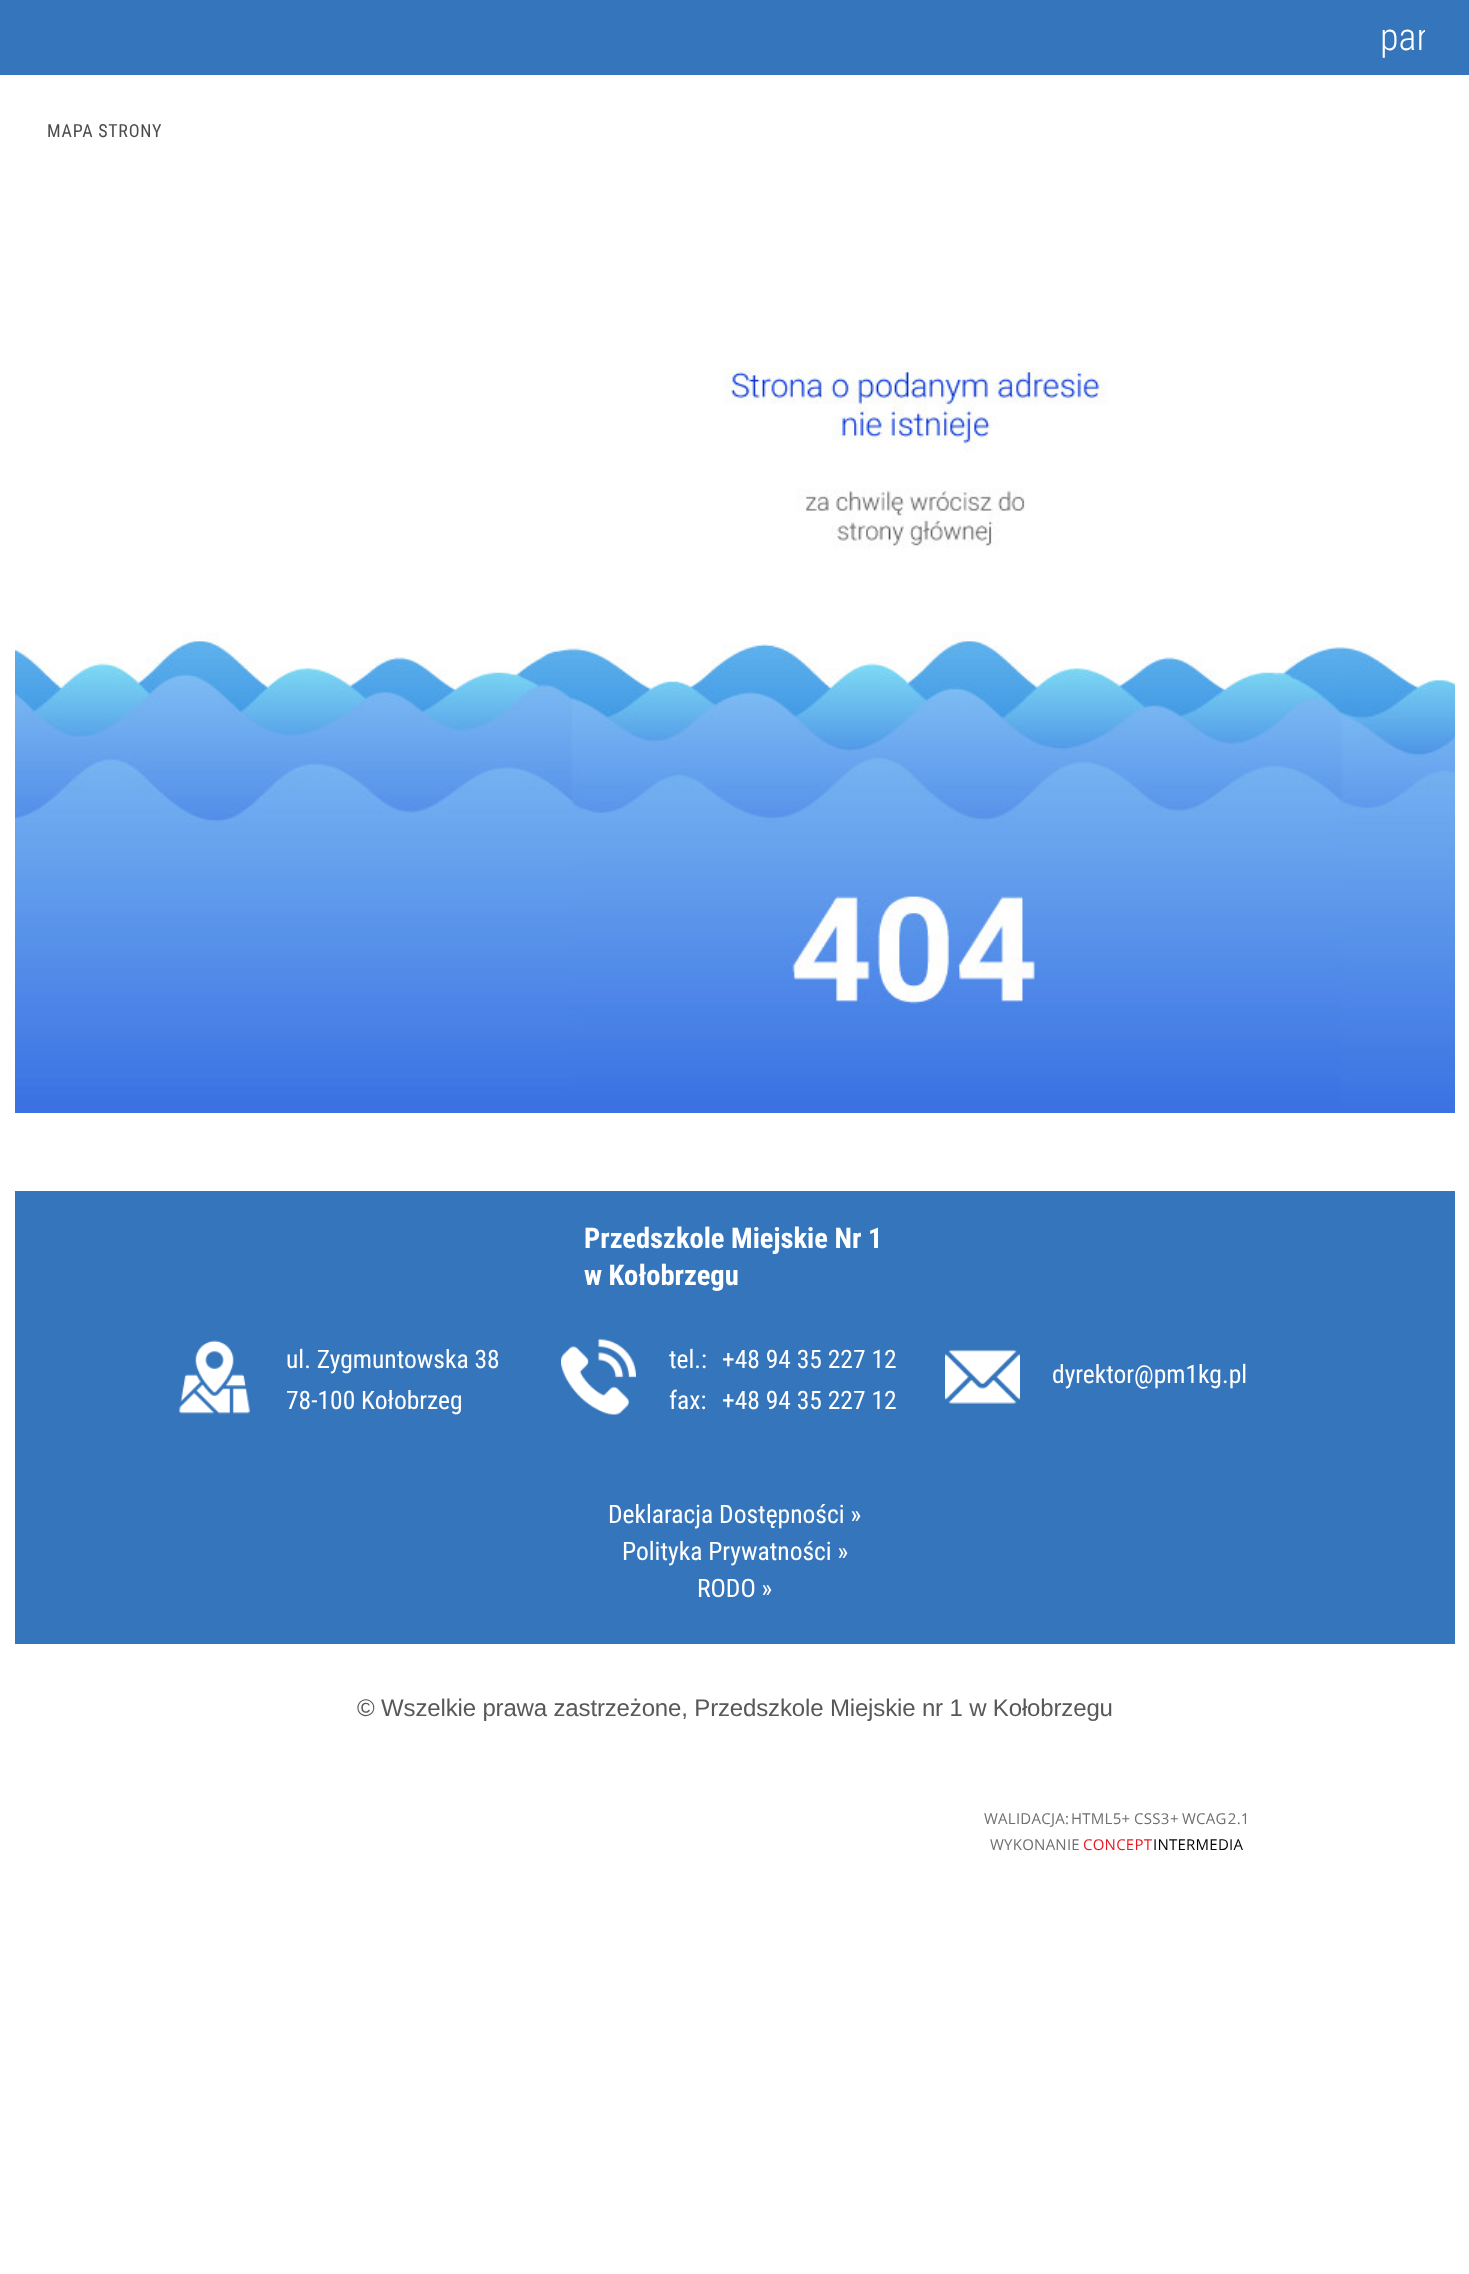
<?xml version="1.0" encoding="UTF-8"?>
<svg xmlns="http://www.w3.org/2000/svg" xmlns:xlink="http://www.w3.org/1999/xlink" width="1469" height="2274">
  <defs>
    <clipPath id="clip1"><rect x="1380" y="15" width="45" height="45" /></clipPath>
  </defs>
  <rect width="100%" height="100%" fill="#ffffff" />
  <rect width="1469" height="75" fill="#3575bc" />
  <image x="15" y="367" width="1440" height="746" xlink:href="image1.png" />
  <rect x="15" y="1191" width="1440" height="453" fill="#3575bc" />
  <image x="179" y="1340" width="71" height="74" xlink:href="image2.png" />
  <image x="561" y="1339" width="75" height="76" xlink:href="image3.png" />
  <image x="945" y="1349" width="75" height="55" xlink:href="image4.png" />
  <g clip-path="url(#clip1)">
    <text x="1380" y="50" style="font-family: Roboto Condensed; font-size: 38px; font-weight: 300; fill: #ffffff">pan</text>
  </g>
  <text x="47" y="137" style="font-family: Roboto Condensed; font-size: 18px; letter-spacing: 0.75px; fill: #4c4c4c">MAPA STRONY</text>
  <text x="584" y="1248" style="font-family: Roboto Condensed; font-size: 28.5px; font-weight: bold; fill: #ffffff">Przedszkole Miejskie Nr 1</text>
  <text x="584" y="1285" style="font-family: Roboto Condensed; font-size: 28.5px; font-weight: bold; fill: #ffffff">w Kołobrzegu</text>
  <text x="286" y="1368" style="font-family: Roboto Condensed; font-size: 25.5px; fill: #ffffff">ul. Zygmuntowska 38</text>
  <text x="286" y="1409" style="font-family: Roboto Condensed; font-size: 25.5px; fill: #ffffff">78-100 Kołobrzeg</text>
  <text x="669" y="1368" style="font-family: Roboto Condensed; font-size: 25.5px; fill: #ffffff">tel.:</text>
  <text x="722" y="1368" style="font-family: Roboto Condensed; font-size: 25.5px; fill: #ffffff">+48 94 35 227 12</text>
  <text x="669" y="1409" style="font-family: Roboto Condensed; font-size: 25.5px; fill: #ffffff">fax:</text>
  <text x="722" y="1409" style="font-family: Roboto Condensed; font-size: 25.5px; fill: #ffffff">+48 94 35 227 12</text>
  <text x="1052" y="1383" style="font-family: Roboto Condensed; font-size: 25.5px; fill: #ffffff">dyrektor@pm1kg.pl</text>
  <text x="608" y="1523" style="font-family: Roboto Condensed; font-size: 25.5px; fill: #ffffff">Deklaracja Dostępności »</text>
  <text x="622" y="1560" style="font-family: Roboto Condensed; font-size: 25.5px; fill: #ffffff">Polityka Prywatności »</text>
  <text x="697" y="1597" style="font-family: Roboto Condensed; font-size: 25.5px; fill: #ffffff">RODO »</text>
  <text x="357" y="1716" style="font-family: Liberation Sans; font-size: 24px; letter-spacing: -0.15px; fill: #58585a">© Wszelkie prawa zastrzeżone, Przedszkole Miejskie nr 1 w Kołobrzegu</text>
  <text x="984" y="1824" style="font-family: Open Sans; font-size: 15px; letter-spacing: 0.25px; fill: #6f6f6f">WALIDACJA:</text>
  <text x="1071" y="1824" style="font-family: Open Sans; font-size: 15px; letter-spacing: 0.25px; fill: #6f6f6f">HTML5+</text>
  <text x="1134" y="1824" style="font-family: Open Sans; font-size: 15px; letter-spacing: 0.25px; fill: #6f6f6f">CSS3</text>
  <text x="1170" y="1824" style="font-family: Open Sans; font-size: 15px; letter-spacing: 0.25px; fill: #6f6f6f">+</text>
  <text x="1182" y="1824" word-spacing="-3" style="font-family: Open Sans; font-size: 15px; letter-spacing: 0.25px; fill: #6f6f6f">WCAG 2.1</text>
  <text x="990" y="1850" style="font-family: Open Sans; font-size: 15px; letter-spacing: 0.25px; fill: #6f6f6f">WYKONANIE</text>
  <text x="1083" y="1850" style="font-family: Open Sans; font-size: 15px; letter-spacing: 0.25px; fill: #ea1920">CONCEPT</text>
  <text x="1153" y="1850" style="font-family: Open Sans; font-size: 15px; letter-spacing: 0.25px; fill: #000000">INTERMEDIA</text>
</svg>
